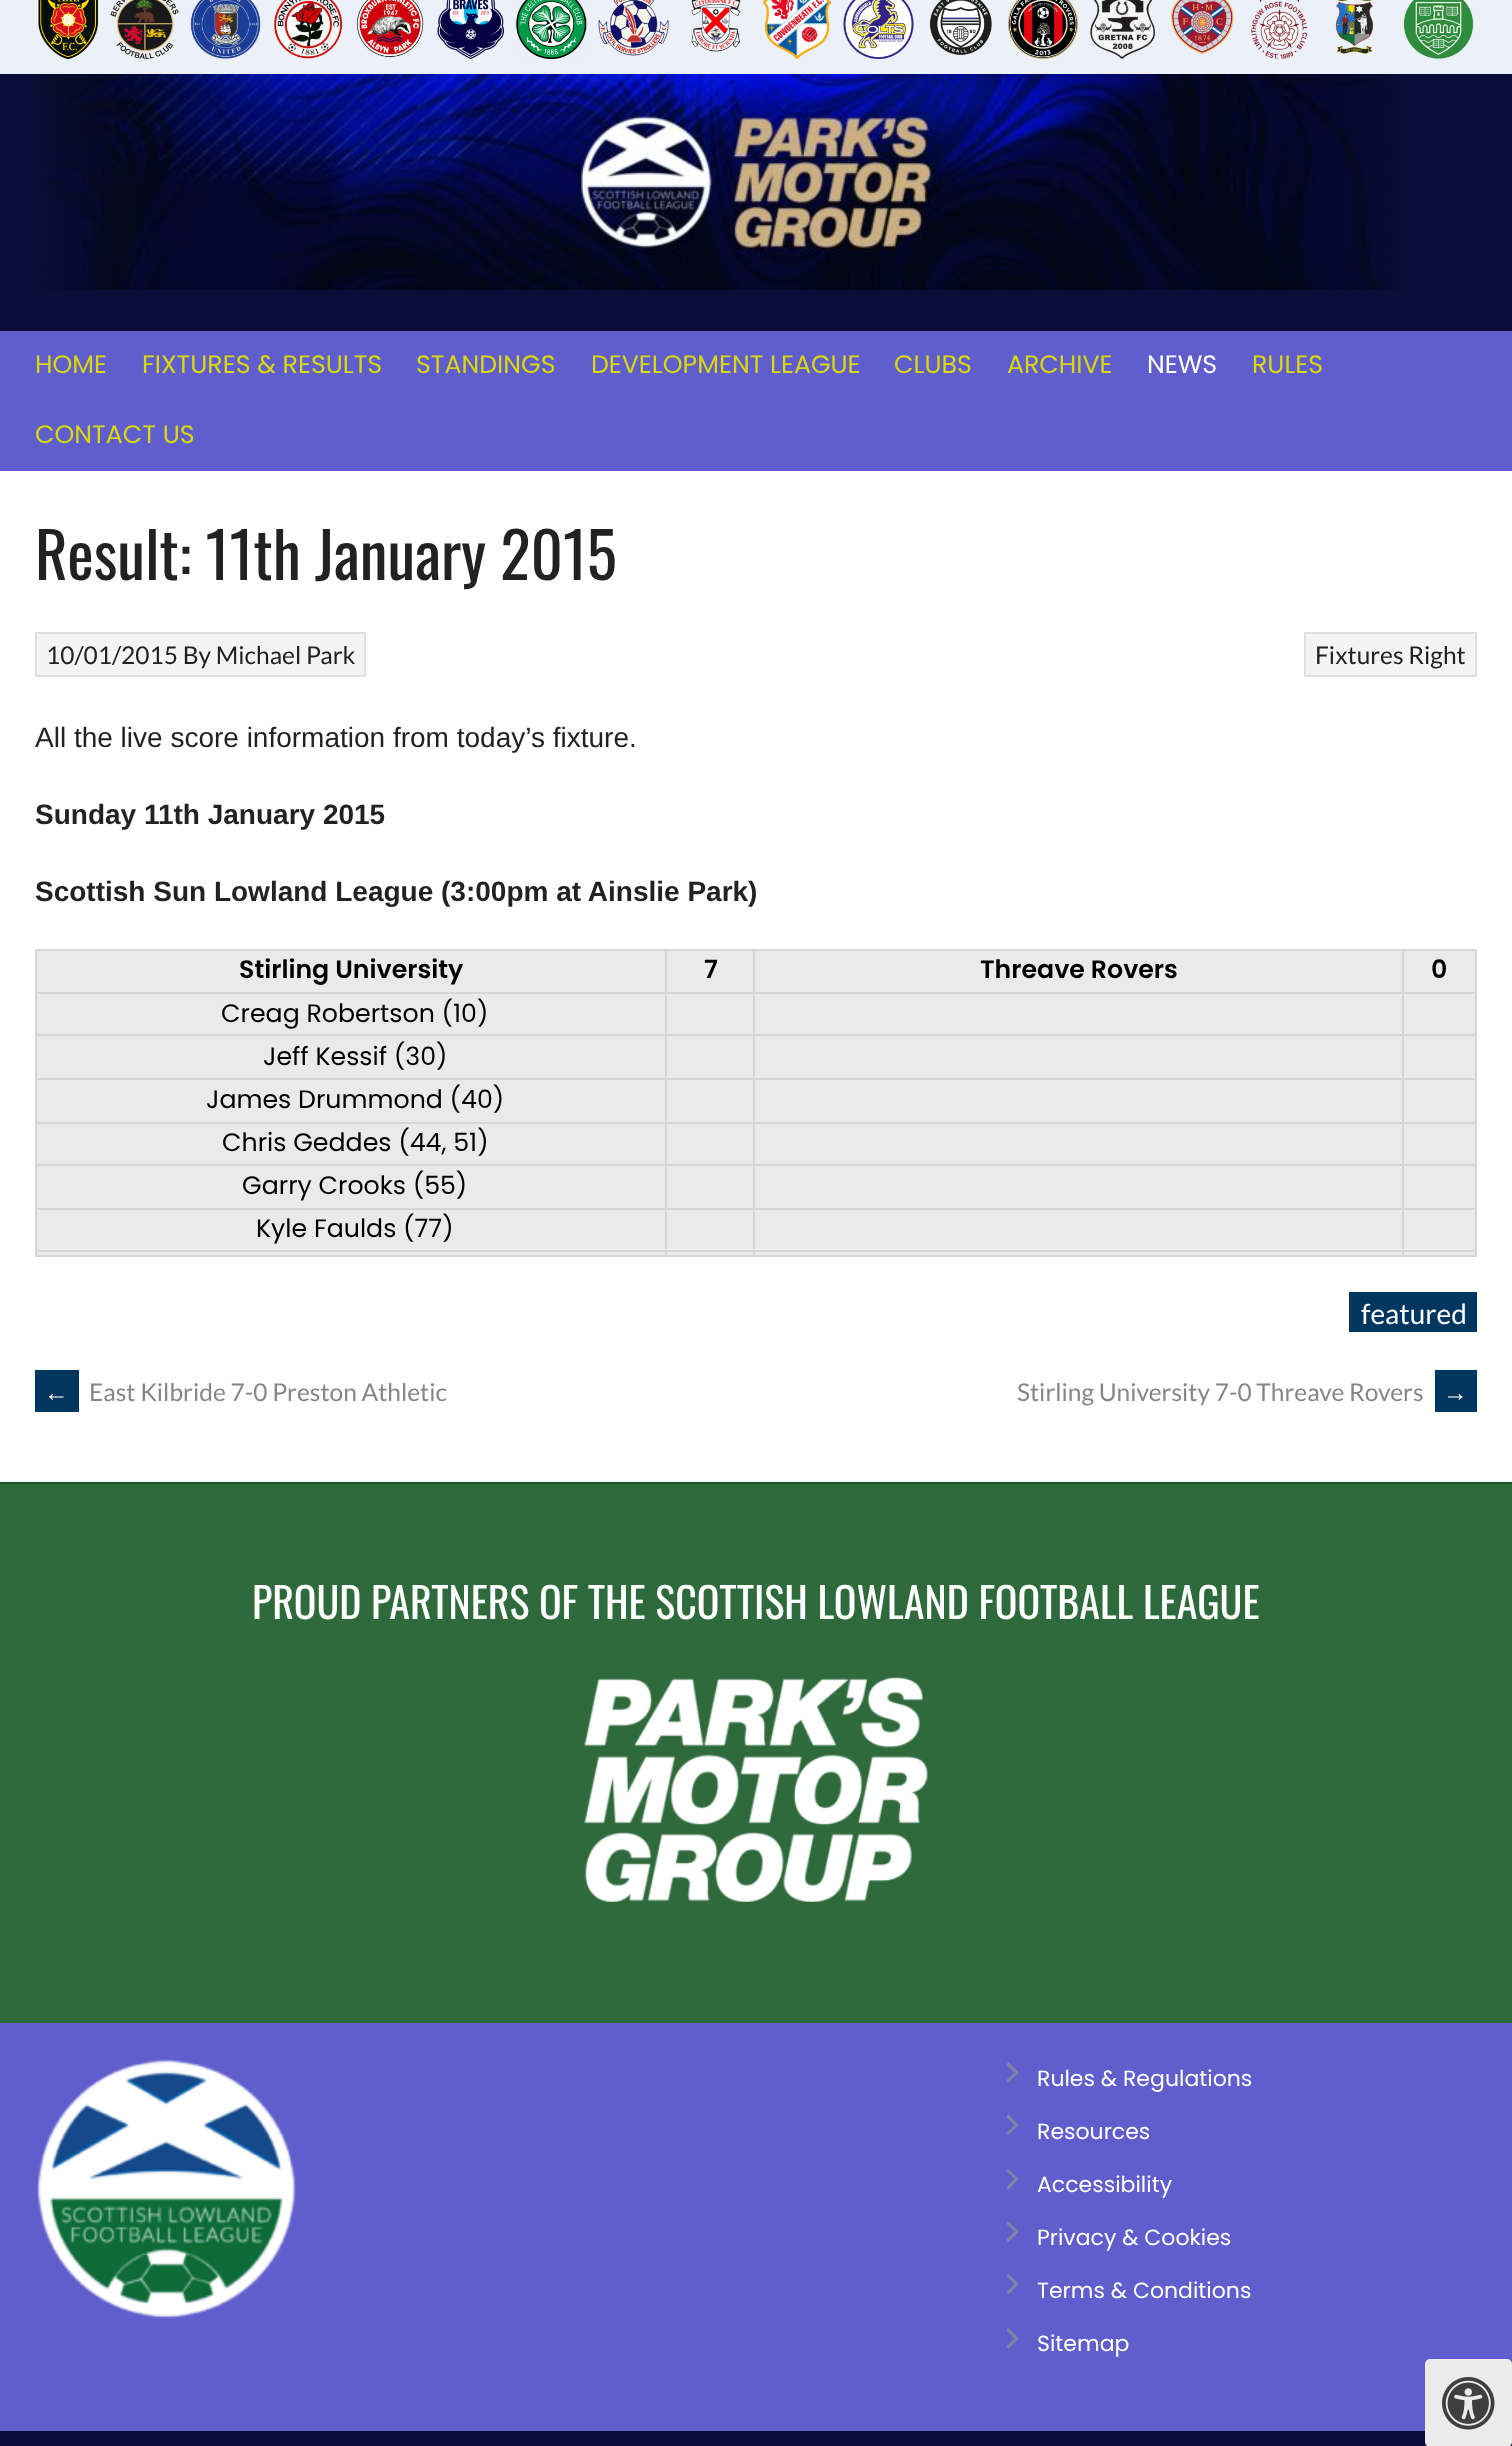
<?xml version="1.0" encoding="UTF-8"?>
<svg xmlns="http://www.w3.org/2000/svg" xmlns:xlink="http://www.w3.org/1999/xlink" width="1512" height="2446">
  <rect width="100%" height="100%" fill="#090d37" />
  <rect width="1512" height="74" fill="#ecf0f8" />
  <image x="38" y="0" width="60" height="59" xlink:href="image1.png" />
  <image x="110" y="0" width="69" height="59" xlink:href="image2.png" />
  <image x="190" y="0" width="71" height="59" xlink:href="image3.png" />
  <image x="274" y="0" width="69" height="59" xlink:href="image4.png" />
  <image x="357" y="0" width="67" height="58" xlink:href="image5.png" />
  <image x="437" y="0" width="67" height="59" xlink:href="image6.png" />
  <image x="516" y="0" width="71" height="59" xlink:href="image7.png" />
  <image x="598" y="0" width="71" height="56" xlink:href="image8.png" />
  <image x="691" y="0" width="50" height="52" xlink:href="image9.png" />
  <image x="763" y="0" width="69" height="59" xlink:href="image10.png" />
  <image x="843" y="0" width="71" height="59" xlink:href="image11.png" />
  <image x="929" y="0" width="63" height="55" xlink:href="image12.png" />
  <image x="1008" y="0" width="70" height="59" xlink:href="image13.png" />
  <image x="1090" y="0" width="65" height="59" xlink:href="image14.png" />
  <image x="1171" y="0" width="63" height="54" xlink:href="image15.png" />
  <image x="1251" y="0" width="57" height="59" xlink:href="image16.png" />
  <image x="1335" y="0" width="39" height="54" xlink:href="image17.png" />
  <image x="1403" y="0" width="71" height="59" xlink:href="image18.png" />
  <image x="35" y="74" width="1364" height="216" xlink:href="image19.png" />
  <rect y="331" width="1512" height="140" fill="#5f5ecc" />
  <rect y="471" width="1512" height="1011" fill="#ffffff" />
  <rect x="36" y="633" width="329" height="43" fill="#f4f4f4" stroke="#e0e0e0" stroke-width="2" />
  <rect x="1305" y="633" width="171" height="43" fill="#f4f4f4" stroke="#e0e0e0" stroke-width="2" />
  <rect x="37" y="951" width="1438" height="304" fill="#eaeaea" />
  <rect x="35" y="949" width="1442" height="2" fill="#d6d6d6" />
  <rect x="1475" y="949" width="2" height="308" fill="#d6d6d6" />
  <rect x="35" y="1255" width="1442" height="2" fill="#d6d6d6" />
  <rect x="35" y="949" width="2" height="308" fill="#d6d6d6" />
  <rect x="1402" y="992" width="75" height="2" fill="#d6d6d6" />
  <rect x="1402" y="1034" width="75" height="2" fill="#d6d6d6" />
  <rect x="1402" y="1078" width="75" height="2" fill="#d6d6d6" />
  <rect x="1402" y="1122" width="75" height="2" fill="#d6d6d6" />
  <rect x="1402" y="1164" width="75" height="2" fill="#d6d6d6" />
  <rect x="1402" y="1208" width="75" height="2" fill="#d6d6d6" />
  <rect x="1402" y="1250" width="75" height="2" fill="#d6d6d6" />
  <rect x="1402" y="1250" width="2" height="7" fill="#d6d6d6" />
  <rect x="753" y="1250" width="651" height="2" fill="#d6d6d6" />
  <rect x="1402" y="1208" width="2" height="43" fill="#d6d6d6" />
  <rect x="753" y="1208" width="651" height="2" fill="#d6d6d6" />
  <rect x="1402" y="1164" width="2" height="45" fill="#d6d6d6" />
  <rect x="753" y="1164" width="651" height="2" fill="#d6d6d6" />
  <rect x="1402" y="1122" width="2" height="44" fill="#d6d6d6" />
  <rect x="753" y="1122" width="651" height="2" fill="#d6d6d6" />
  <rect x="1402" y="1078" width="2" height="46" fill="#d6d6d6" />
  <rect x="753" y="1078" width="651" height="2" fill="#d6d6d6" />
  <rect x="1402" y="1034" width="2" height="46" fill="#d6d6d6" />
  <rect x="753" y="1034" width="651" height="2" fill="#d6d6d6" />
  <rect x="1402" y="992" width="2" height="44" fill="#d6d6d6" />
  <rect x="753" y="992" width="651" height="2" fill="#d6d6d6" />
  <rect x="753" y="1250" width="2" height="7" fill="#d6d6d6" />
  <rect x="665" y="1250" width="89" height="2" fill="#d6d6d6" />
  <rect x="753" y="1208" width="2" height="43" fill="#d6d6d6" />
  <rect x="665" y="1208" width="89" height="2" fill="#d6d6d6" />
  <rect x="753" y="1164" width="2" height="45" fill="#d6d6d6" />
  <rect x="665" y="1164" width="89" height="2" fill="#d6d6d6" />
  <rect x="753" y="1122" width="2" height="44" fill="#d6d6d6" />
  <rect x="665" y="1122" width="89" height="2" fill="#d6d6d6" />
  <rect x="753" y="1078" width="2" height="46" fill="#d6d6d6" />
  <rect x="665" y="1078" width="89" height="2" fill="#d6d6d6" />
  <rect x="753" y="1034" width="2" height="46" fill="#d6d6d6" />
  <rect x="665" y="1034" width="89" height="2" fill="#d6d6d6" />
  <rect x="753" y="992" width="2" height="44" fill="#d6d6d6" />
  <rect x="665" y="992" width="89" height="2" fill="#d6d6d6" />
  <rect x="665" y="1250" width="2" height="7" fill="#d6d6d6" />
  <rect x="35" y="1250" width="632" height="2" fill="#d6d6d6" />
  <rect x="665" y="1208" width="2" height="43" fill="#d6d6d6" />
  <rect x="35" y="1208" width="632" height="2" fill="#d6d6d6" />
  <rect x="665" y="1164" width="2" height="45" fill="#d6d6d6" />
  <rect x="35" y="1164" width="632" height="2" fill="#d6d6d6" />
  <rect x="665" y="1122" width="2" height="44" fill="#d6d6d6" />
  <rect x="35" y="1122" width="632" height="2" fill="#d6d6d6" />
  <rect x="665" y="1078" width="2" height="46" fill="#d6d6d6" />
  <rect x="35" y="1078" width="632" height="2" fill="#d6d6d6" />
  <rect x="665" y="1034" width="2" height="46" fill="#d6d6d6" />
  <rect x="35" y="1034" width="632" height="2" fill="#d6d6d6" />
  <rect x="665" y="992" width="2" height="44" fill="#d6d6d6" />
  <rect x="35" y="992" width="632" height="2" fill="#d6d6d6" />
  <rect x="665" y="949" width="2" height="45" fill="#d6d6d6" />
  <rect x="753" y="949" width="2" height="45" fill="#d6d6d6" />
  <rect x="1402" y="949" width="2" height="45" fill="#d6d6d6" />
  <rect x="1349" y="1292" width="128" height="40" fill="#00365f" />
  <rect x="35" y="1370" width="44" height="42" fill="#00365f" />
  <rect x="1435" y="1370" width="42" height="42" fill="#00365f" />
  <rect y="1484" width="1512" height="539" fill="#2f6a3d" />
  <rect y="1482" width="1512" height="2" fill="#1b5629" />
  <image x="584" y="1677" width="344" height="225" xlink:href="image20.png" />
  <rect y="2023" width="1512" height="408" fill="#5f5ecc" />
  <image x="36" y="2059" width="260" height="260" xlink:href="image21.png" />
  <path d="M 1006.5 2080 l 8 -7.5 l -8 -7.5 l 1.5 -3.5 l 11 11 l -11 10.5 z" fill="#8181a4" />
  <path d="M 1006.5 2132.5 l 8 -7.5 l -8 -7.5 l 1.5 -3.5 l 11 11 l -11 10.5 z" fill="#8181a4" />
  <path d="M 1006.5 2187 l 8 -8 l -8 -7.5 l 1.5 -3 l 11 10.5 l -11 11 z" fill="#8181a4" />
  <path d="M 1006.5 2239.5 l 8 -8 l -8 -7.5 l 1.5 -3 l 11 10.5 l -11 11 z" fill="#8181a4" />
  <path d="M 1006.5 2292 l 8 -8 l -8 -7.5 l 1.5 -3 l 11 10.5 l -11 11 z" fill="#8181a4" />
  <path d="M 1006.5 2346 l 8 -7.5 l -8 -7.5 l 1.5 -3.5 l 11 11 l -11 10.5 z" fill="#8181a4" />
  <rect x="1425" y="2359" width="87" height="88" rx="5" fill="#ebebeb" />
  <image x="1442" y="2377" width="53" height="53" xlink:href="image22.png" />
  <text x="35" y="373" style="font-family: Poppins; font-size: 25.25px; fill: #dbd909">HOME</text>
  <text x="142" y="373" style="font-family: Poppins; font-size: 25.25px; fill: #dbd909">FIXTURES &amp; RESULTS</text>
  <text x="416" y="373" style="font-family: Poppins; font-size: 25.25px; fill: #dbd909">STANDINGS</text>
  <text x="591" y="373" style="font-family: Poppins; font-size: 25.25px; fill: #dbd909">DEVELOPMENT LEAGUE</text>
  <text x="894" y="373" style="font-family: Poppins; font-size: 25.25px; fill: #dbd909">CLUBS</text>
  <text x="1007" y="373" style="font-family: Poppins; font-size: 25.25px; fill: #dbd909">ARCHIVE</text>
  <text x="1147" y="373" style="font-family: Poppins; font-size: 25.25px; fill: #ffffff">NEWS</text>
  <text x="1252" y="373" style="font-family: Poppins; font-size: 25.25px; fill: #dbd909">RULES</text>
  <text x="35" y="443" style="font-family: Poppins; font-size: 25.25px; fill: #dbd909">CONTACT US</text>
  <text x="35" y="580" style="font-family: Oswald; font-size: 63px; fill: #222222">Result: 11th January 2015</text>
  <text x="46" y="664" style="font-family: Lato; font-size: 24.5px; fill: #222222">10/01/2015 By Michael Park</text>
  <text x="1315" y="664" style="font-family: Lato; font-size: 24.5px; fill: #222222">Fixtures Right</text>
  <text x="35" y="747" style="font-family: Liberation Sans; font-size: 28px; fill: #222222">All the live score information from today’s fixture.</text>
  <text x="35" y="824" style="font-family: Liberation Sans; font-size: 28px; font-weight: bold; fill: #222222">Sunday 11th January 2015</text>
  <text x="35" y="901" style="font-family: Liberation Sans; font-size: 28px; font-weight: bold; fill: #222222">Scottish Sun Lowland League (3:00pm at Ainslie Park)</text>
  <text x="239" y="978" style="font-family: Poppins; font-size: 25.25px; font-weight: 600; fill: #000000">Stirling University</text>
  <text x="704" y="978" style="font-family: Poppins; font-size: 25.25px; font-weight: 600; fill: #000000">7</text>
  <text x="980" y="978" style="font-family: Poppins; font-size: 25.25px; font-weight: 600; fill: #000000">Threave Rovers</text>
  <text x="1431" y="978" style="font-family: Poppins; font-size: 25.25px; font-weight: 600; fill: #000000">0</text>
  <text x="221" y="1022" style="font-family: Poppins; font-size: 25.25px; fill: #000000">Creag Robertson (10)</text>
  <text x="263" y="1065" style="font-family: Poppins; font-size: 25.25px; fill: #000000">Jeff Kessif (30)</text>
  <text x="206" y="1108" style="font-family: Poppins; font-size: 25.25px; fill: #000000">James Drummond (40)</text>
  <text x="222" y="1151" style="font-family: Poppins; font-size: 25.25px; fill: #000000">Chris Geddes (44, 51)</text>
  <text x="242" y="1194" style="font-family: Poppins; font-size: 25.25px; fill: #000000">Garry Crooks (55)</text>
  <text x="256" y="1237" style="font-family: Poppins; font-size: 25.25px; fill: #000000">Kyle Faulds (77)</text>
  <text x="1361" y="1324" style="font-family: Lato; font-size: 28px; fill: #ffffff">featured</text>
  <text x="44" y="1401" style="font-family: Liberation Sans; font-size: 24.5px; fill: #ffffff">←</text>
  <text x="89" y="1401" style="font-family: Lato; font-size: 24.5px; fill: #868686">East Kilbride 7-0 Preston Athletic</text>
  <text x="1017" y="1401" style="font-family: Lato; font-size: 24.5px; fill: #868686">Stirling University 7-0 Threave Rovers</text>
  <text x="1443" y="1401" style="font-family: Liberation Sans; font-size: 24.5px; fill: #ffffff">→</text>
  <text x="252" y="1619" style="font-family: Oswald; font-size: 42px; fill: #ffffff">PROUD PARTNERS OF THE SCOTTISH LOWLAND FOOTBALL LEAGUE</text>
  <text x="1037" y="2086" style="font-family: Poppins; font-size: 22px; fill: #ffffff">Rules &amp; Regulations</text>
  <text x="1037" y="2139" style="font-family: Poppins; font-size: 22px; fill: #ffffff">Resources</text>
  <text x="1037" y="2192" style="font-family: Poppins; font-size: 22px; fill: #ffffff">Accessibility</text>
  <text x="1037" y="2245" style="font-family: Poppins; font-size: 22px; fill: #ffffff">Privacy &amp; Cookies</text>
  <text x="1037" y="2298" style="font-family: Poppins; font-size: 22px; fill: #ffffff">Terms &amp; Conditions</text>
  <text x="1037" y="2351" style="font-family: Poppins; font-size: 22px; fill: #ffffff">Sitemap</text>
</svg>
